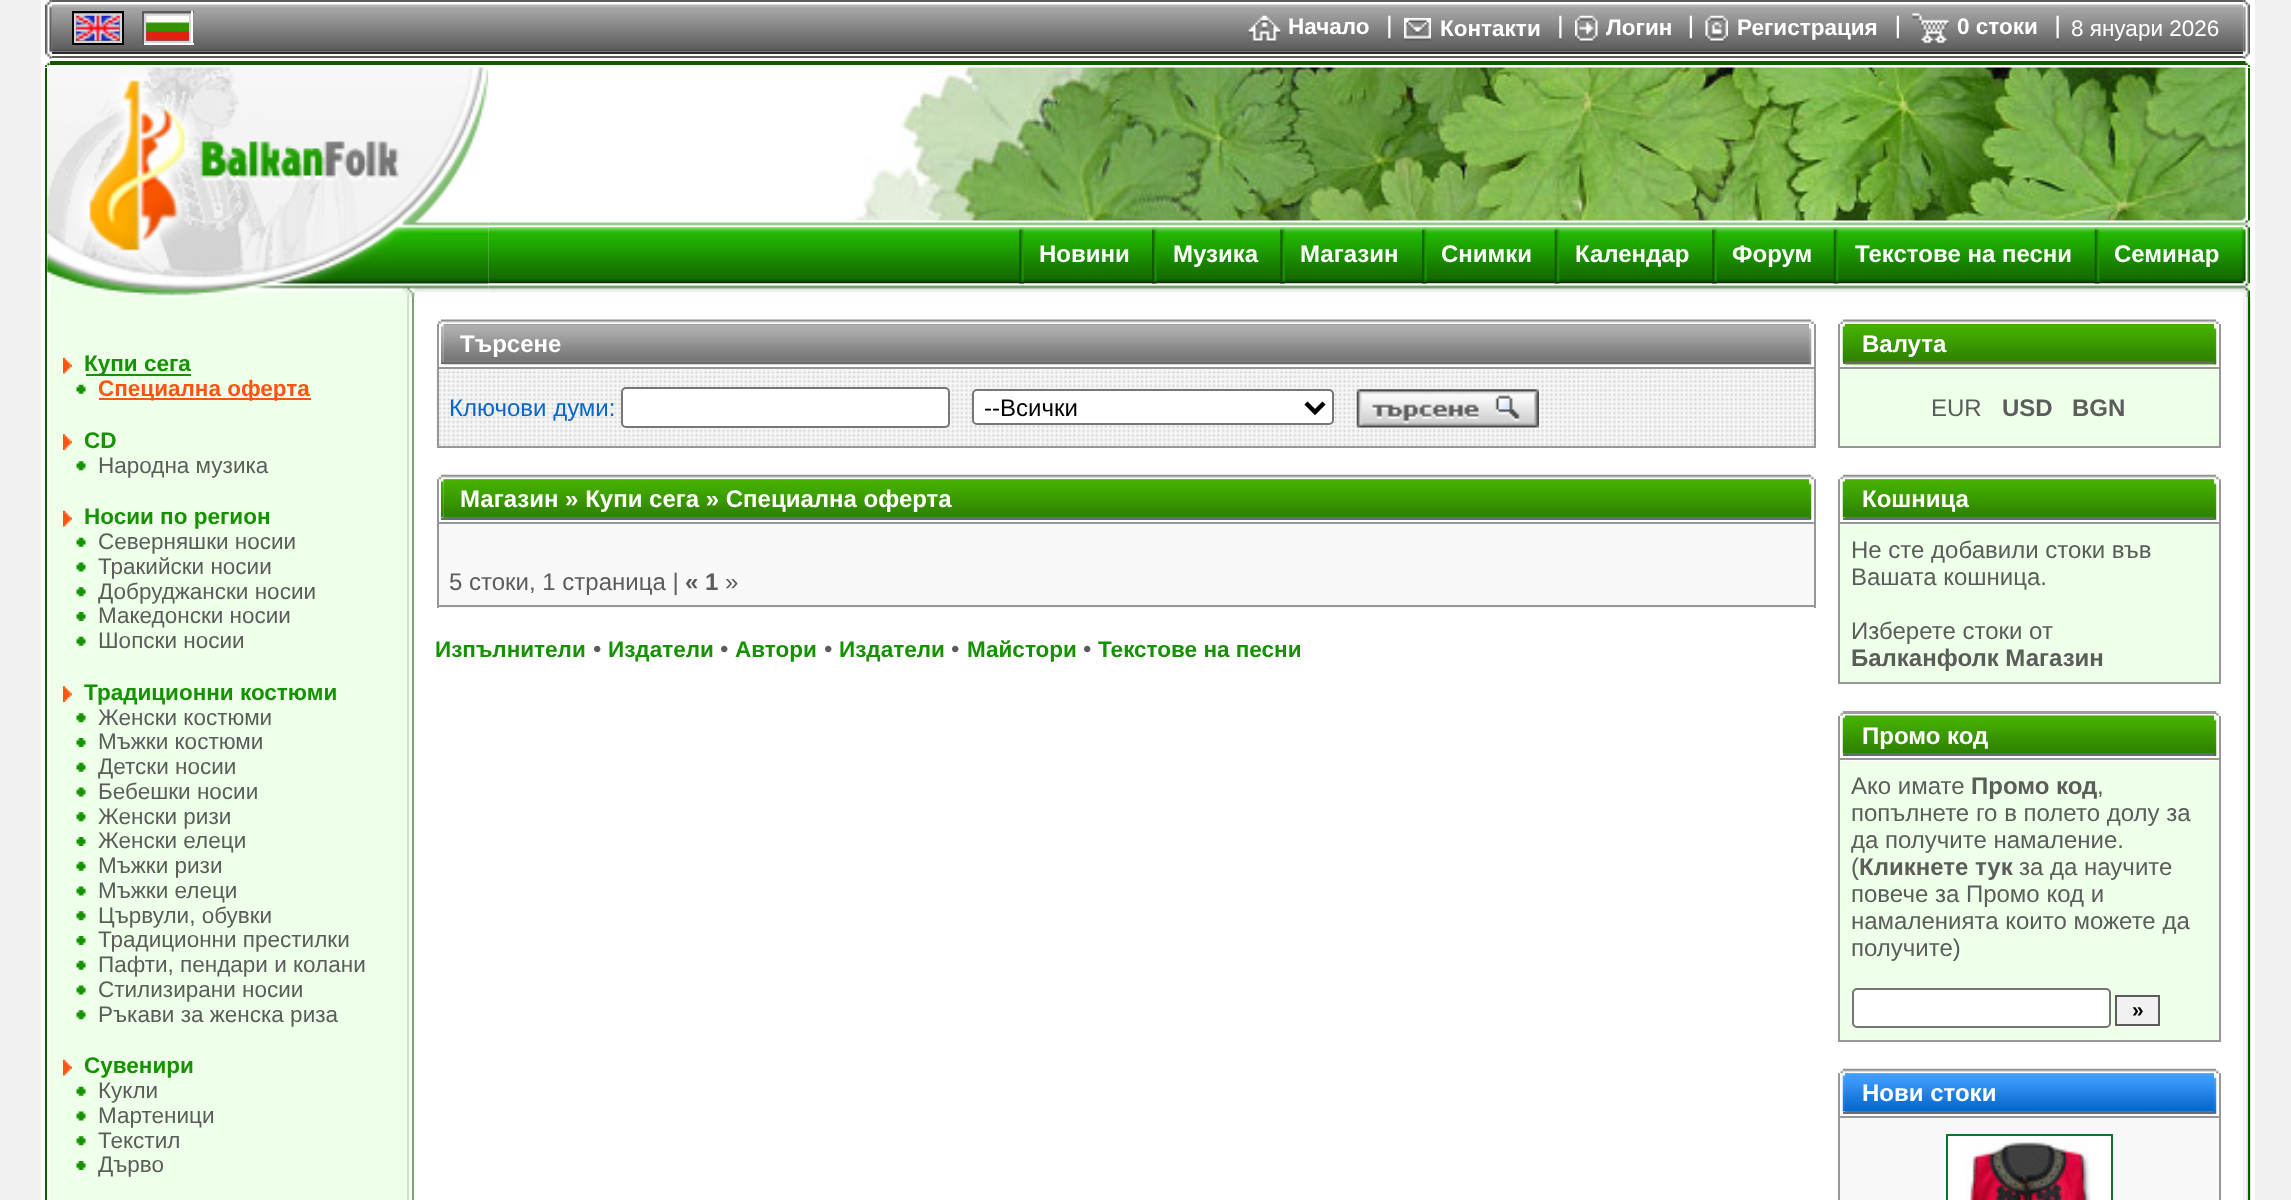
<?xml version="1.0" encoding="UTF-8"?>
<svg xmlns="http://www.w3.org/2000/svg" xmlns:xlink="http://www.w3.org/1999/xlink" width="2291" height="1200">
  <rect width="100%" height="100%" fill="#f1f1f1" />
  <rect x="41" width="2214" height="1200" fill="#ffffff" />
  <image x="51" y="4" width="21" height="48" xlink:href="image3.png" />
  <image x="45" y="0" width="7" height="59" xlink:href="image1.png" />
  <rect x="52" width="2191" height="2" fill="#5c5c5c" />
  <image x="72" y="4" width="2172" height="48" xlink:href="image4.png" />
  <image x="2243" y="0" width="7" height="59" xlink:href="image2.png" />
  <rect x="73" y="12" width="50" height="32" fill="none" stroke="#000000" stroke-width="2" />
  <rect x="75" y="15" width="46" height="27" fill="none" stroke="#d5d5d5" stroke-width="2" />
  <image x="76" y="15" width="44" height="26" xlink:href="image5.png" />
  <rect x="142" y="11" width="52" height="2" fill="#5c5c5c" />
  <rect x="191" y="11" width="2" height="34" fill="#ffffff" />
  <rect x="142" y="43" width="52" height="2" fill="#ffffff" />
  <rect x="142" y="11" width="2" height="34" fill="#5c5c5c" />
  <rect x="145" y="15" width="45" height="27" fill="none" stroke="#d5d5d5" stroke-width="2" />
  <image x="146" y="15" width="43" height="26" xlink:href="image6.png" />
  <image x="1248" y="15" width="33" height="28" xlink:href="image7.png" />
  <image x="1388" y="15" width="3" height="26" xlink:href="image8.png" />
  <image x="1404" y="18" width="27" height="23" xlink:href="image9.png" />
  <image x="1559" y="15" width="3" height="26" xlink:href="image8.png" />
  <image x="1575" y="15" width="23" height="28" xlink:href="image10.png" />
  <image x="1689" y="15" width="3" height="26" xlink:href="image11.png" />
  <image x="1705" y="15" width="23" height="28" xlink:href="image12.png" />
  <image x="1896" y="15" width="3" height="26" xlink:href="image11.png" />
  <image x="1912" y="13" width="37" height="32" xlink:href="image13.png" />
  <image x="2056" y="15" width="3" height="26" xlink:href="image14.png" />
  <rect x="52" y="52" width="2191" height="2" fill="#292929" />
  <rect x="52" y="56" width="2191" height="2" fill="#5c5c5c" />
  <rect x="45" y="65" width="2" height="2" fill="#135903" />
  <image x="45" y="62" width="5" height="4" xlink:href="image15.png" />
  <rect x="50" y="61" width="2196" height="4" fill="#135903" />
  <rect x="2248" y="65" width="2" height="2" fill="#135903" />
  <image x="2245" y="61" width="5" height="5" xlink:href="image16.png" />
  <rect x="45" y="68" width="2" height="1132" fill="#135903" />
  <image x="488" y="222" width="1753" height="4" xlink:href="image19.png" />
  <image x="488" y="227" width="1753" height="57" xlink:href="image21.png" />
  <image x="488" y="283" width="1753" height="10" xlink:href="image27.png" />
  <image x="47" y="67" width="442" height="230" xlink:href="image17.png" />
  <rect x="2248" y="68" width="2" height="153" fill="#135903" />
  <image x="847" y="67" width="1399" height="154" xlink:href="image18.png" />
  <image x="2241" y="220" width="9" height="8" xlink:href="image20.png" />
  <image x="1019" y="227" width="5" height="57" xlink:href="image22.png" />
  <image x="1152" y="227" width="5" height="57" xlink:href="image23.png" />
  <image x="1280" y="227" width="5" height="57" xlink:href="image24.png" />
  <image x="1422" y="227" width="5" height="57" xlink:href="image23.png" />
  <image x="1554" y="227" width="6" height="57" xlink:href="image25.png" />
  <image x="1712" y="227" width="5" height="57" xlink:href="image22.png" />
  <image x="1833" y="227" width="6" height="57" xlink:href="image25.png" />
  <image x="2094" y="227" width="6" height="57" xlink:href="image25.png" />
  <image x="2241" y="227" width="9" height="57" xlink:href="image26.png" />
  <image x="2241" y="283" width="9" height="14" xlink:href="image28.png" />
  <rect x="49" y="297" width="361" height="903" fill="#eeffea" />
  <rect x="407" y="297" width="2" height="903" fill="#d1dfce" />
  <image x="63" y="357" width="9" height="17" xlink:href="image29.png" />
  <rect x="86" y="374" width="105" height="2" fill="#159200" />
  <image x="76" y="384" width="10" height="10" xlink:href="image30.png" />
  <rect x="99" y="398" width="212" height="2" fill="#fd5411" />
  <image x="63" y="434" width="9" height="16" xlink:href="image31.png" />
  <image x="76" y="461" width="10" height="10" xlink:href="image32.png" />
  <image x="63" y="510" width="9" height="17" xlink:href="image29.png" />
  <image x="76" y="537" width="10" height="10" xlink:href="image30.png" />
  <image x="76" y="562" width="10" height="10" xlink:href="image33.png" />
  <image x="76" y="587" width="10" height="10" xlink:href="image32.png" />
  <image x="76" y="612" width="10" height="9" xlink:href="image34.png" />
  <image x="76" y="636" width="10" height="10" xlink:href="image30.png" />
  <image x="63" y="686" width="9" height="16" xlink:href="image31.png" />
  <image x="76" y="713" width="10" height="10" xlink:href="image32.png" />
  <image x="76" y="738" width="10" height="9" xlink:href="image34.png" />
  <image x="76" y="762" width="10" height="10" xlink:href="image30.png" />
  <image x="76" y="787" width="10" height="10" xlink:href="image33.png" />
  <image x="76" y="812" width="10" height="10" xlink:href="image32.png" />
  <image x="76" y="837" width="10" height="9" xlink:href="image34.png" />
  <image x="76" y="861" width="10" height="10" xlink:href="image30.png" />
  <image x="76" y="886" width="10" height="10" xlink:href="image33.png" />
  <image x="76" y="911" width="10" height="10" xlink:href="image32.png" />
  <image x="76" y="936" width="10" height="9" xlink:href="image34.png" />
  <image x="76" y="960" width="10" height="10" xlink:href="image30.png" />
  <image x="76" y="985" width="10" height="10" xlink:href="image33.png" />
  <image x="76" y="1010" width="10" height="10" xlink:href="image32.png" />
  <image x="63" y="1059" width="9" height="17" xlink:href="image29.png" />
  <image x="76" y="1086" width="10" height="10" xlink:href="image30.png" />
  <image x="76" y="1111" width="10" height="10" xlink:href="image33.png" />
  <image x="76" y="1136" width="10" height="10" xlink:href="image32.png" />
  <image x="76" y="1161" width="10" height="9" xlink:href="image34.png" />
  <rect x="2243" y="297" width="2" height="903" fill="#f2f2f2" />
  <rect x="412" y="297" width="2" height="903" fill="#7aa171" />
  <rect x="438" y="321" width="3" height="3" fill="#b6b6b6" />
  <image x="441" y="319" width="1371" height="4" xlink:href="image35.png" />
  <image x="1811" y="319" width="4" height="5" xlink:href="image36.png" />
  <rect x="437" y="324" width="2" height="41" fill="#979797" />
  <rect x="441" y="362" width="2" height="2" fill="#6b6b6b" />
  <image x="443" y="324" width="1366" height="41" xlink:href="image38.png" />
  <rect x="443" y="362" width="1366" height="2" fill="#6b6b6b" />
  <image x="441" y="324" width="3" height="39" xlink:href="image37.png" />
  <image x="1809" y="328" width="3" height="37" xlink:href="image39.png" />
  <rect x="1814" y="324" width="2" height="124" fill="#979797" />
  <rect x="437" y="367" width="1379" height="2" fill="#979797" />
  <rect x="437" y="365" width="2" height="5" fill="#979797" />
  <image x="436" y="369" width="1378" height="79" xlink:href="image40.png" />
  <rect x="437" y="446" width="1379" height="2" fill="#979797" />
  <rect x="437" y="369" width="2" height="79" fill="#979797" />
  <rect x="622" y="388" width="327" height="39" rx="4" fill="#ffffff" stroke="#767676" stroke-width="2" />
  <rect x="973" y="390" width="360" height="34" rx="4" fill="#ffffff" stroke="#767676" stroke-width="2" />
  <path d="M 1306 403 l 9 9 l 9 -9" fill="none" stroke="#000000" stroke-width="4.5" />
  <image x="1356" y="389" width="183" height="39" xlink:href="image41.png" />
  <rect x="437" y="479" width="2" height="41" fill="#979797" />
  <image x="437" y="476" width="4" height="4" xlink:href="image42.png" />
  <image x="441" y="474" width="1371" height="4" xlink:href="image43.png" />
  <rect x="1814" y="479" width="2" height="129" fill="#979797" />
  <image x="1811" y="475" width="5" height="5" xlink:href="image44.png" />
  <rect x="441" y="518" width="1368" height="2" fill="#6b6b6b" />
  <image x="443" y="479" width="1366" height="39" xlink:href="image47.png" />
  <image x="441" y="479" width="3" height="39" xlink:href="image45.png" />
  <image x="1809" y="483" width="3" height="37" xlink:href="image46.png" />
  <rect x="437" y="522" width="1379" height="2" fill="#979797" />
  <rect x="437" y="520" width="2" height="5" fill="#979797" />
  <rect x="439" y="524" width="1375" height="84" fill="#f8f8f8" />
  <rect x="437" y="605" width="1379" height="2" fill="#979797" />
  <rect x="437" y="524" width="2" height="84" fill="#979797" />
  <image x="1842" y="319" width="375" height="4" xlink:href="image49.png" />
  <image x="1840" y="319" width="3" height="5" xlink:href="image48.png" />
  <image x="2216" y="319" width="4" height="5" xlink:href="image36.png" />
  <rect x="1838" y="324" width="2" height="41" fill="#979797" />
  <rect x="1843" y="362" width="2" height="2" fill="#6b6b6b" />
  <image x="1842" y="325" width="3" height="38" xlink:href="image50.png" />
  <image x="1845" y="324" width="369" height="41" xlink:href="image51.png" />
  <rect x="1845" y="362" width="369" height="2" fill="#6b6b6b" />
  <image x="2214" y="328" width="3" height="37" xlink:href="image52.png" />
  <rect x="2219" y="324" width="2" height="124" fill="#979797" />
  <rect x="1838" y="367" width="383" height="2" fill="#979797" />
  <rect x="1838" y="365" width="2" height="5" fill="#979797" />
  <rect x="1840" y="369" width="379" height="77" fill="#eeffea" />
  <rect x="1838" y="446" width="383" height="2" fill="#979797" />
  <rect x="1838" y="369" width="2" height="79" fill="#979797" />
  <image x="1842" y="474" width="375" height="4" xlink:href="image54.png" />
  <rect x="1838" y="479" width="2" height="41" fill="#979797" />
  <image x="1838" y="475" width="5" height="5" xlink:href="image53.png" />
  <rect x="2219" y="479" width="2" height="205" fill="#979797" />
  <image x="2216" y="475" width="5" height="5" xlink:href="image44.png" />
  <rect x="1843" y="518" width="371" height="2" fill="#6b6b6b" />
  <image x="1842" y="481" width="3" height="37" xlink:href="image55.png" />
  <image x="2214" y="483" width="3" height="37" xlink:href="image46.png" />
  <image x="1845" y="479" width="369" height="39" xlink:href="image56.png" />
  <rect x="1838" y="522" width="383" height="2" fill="#979797" />
  <rect x="1838" y="520" width="2" height="5" fill="#979797" />
  <rect x="1840" y="524" width="379" height="158" fill="#eeffea" />
  <rect x="1838" y="682" width="383" height="2" fill="#979797" />
  <rect x="1838" y="524" width="2" height="160" fill="#979797" />
  <rect x="1842" y="711" width="375" height="3" fill="#9e9e9e" />
  <image x="1840" y="711" width="3" height="5" xlink:href="image57.png" />
  <image x="2216" y="711" width="4" height="5" xlink:href="image58.png" />
  <rect x="1838" y="716" width="2" height="40" fill="#979797" />
  <rect x="1843" y="754" width="371" height="2" fill="#6b6b6b" />
  <image x="1842" y="715" width="3" height="39" xlink:href="image59.png" />
  <image x="2214" y="719" width="3" height="37" xlink:href="image60.png" />
  <rect x="2219" y="716" width="2" height="326" fill="#979797" />
  <image x="1845" y="715" width="369" height="39" xlink:href="image61.png" />
  <rect x="1838" y="758" width="383" height="2" fill="#979797" />
  <rect x="1838" y="756" width="2" height="5" fill="#979797" />
  <rect x="1840" y="761" width="379" height="279" fill="#eeffea" />
  <rect x="1838" y="1040" width="383" height="2" fill="#979797" />
  <rect x="1838" y="761" width="2" height="281" fill="#979797" />
  <rect x="1853" y="989" width="257" height="38" rx="4" fill="#ffffff" stroke="#767676" stroke-width="2" />
  <rect x="2116" y="996" width="43" height="29" fill="#f1f1f1" stroke="#5c5c5c" stroke-width="2" />
  <image x="1842" y="1068" width="375" height="4" xlink:href="image54.png" />
  <rect x="1838" y="1073" width="2" height="41" fill="#979797" />
  <image x="1838" y="1069" width="5" height="5" xlink:href="image53.png" />
  <rect x="2219" y="1073" width="2" height="127" fill="#979797" />
  <image x="2216" y="1069" width="5" height="5" xlink:href="image44.png" />
  <rect x="1843" y="1112" width="371" height="2" fill="#6b6b6b" />
  <image x="1842" y="1075" width="3" height="37" xlink:href="image62.png" />
  <image x="2214" y="1077" width="3" height="37" xlink:href="image63.png" />
  <image x="1845" y="1073" width="369" height="39" xlink:href="image64.png" />
  <rect x="1838" y="1116" width="383" height="2" fill="#979797" />
  <rect x="1838" y="1114" width="2" height="86" fill="#979797" />
  <rect x="1840" y="1118" width="379" height="82" fill="#f8f8f8" />
  <rect x="1947" y="1135" width="165" height="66" fill="none" stroke="#0e732d" stroke-width="2" />
  <rect x="1949" y="1136" width="162" height="64" fill="#ffffff" />
  <image x="1965" y="1138" width="126" height="62" xlink:href="image65.png" />
  <rect x="2246" y="297" width="5" height="903" fill="#e3e3e3" />
  <rect x="2248" y="297" width="2" height="903" fill="#135903" />
  <text x="1288" y="34" style="font-family: Liberation Sans; font-size: 22.5px; font-weight: bold; fill: #ffffff">Начало</text>
  <text x="1440" y="36" style="font-family: Liberation Sans; font-size: 22.5px; font-weight: bold; fill: #ffffff">Контакти</text>
  <text x="1606" y="35" style="font-family: Liberation Sans; font-size: 22.5px; font-weight: bold; fill: #ffffff">Логин</text>
  <text x="1737" y="35" style="font-family: Liberation Sans; font-size: 22.5px; font-weight: bold; fill: #ffffff">Регистрация</text>
  <text x="1957" y="34" style="font-family: Liberation Sans; font-size: 22.5px; font-weight: bold; fill: #ffffff">0 стоки</text>
  <text x="2071" y="36" style="font-family: Liberation Sans; font-size: 22.5px; fill: #ffffff">8 януари 2026</text>
  <text x="1039" y="262" style="font-family: Liberation Sans; font-size: 24px; font-weight: bold; fill: #ffffff">Новини</text>
  <text x="1173" y="262" style="font-family: Liberation Sans; font-size: 24px; font-weight: bold; fill: #ffffff">Музика</text>
  <text x="1300" y="262" style="font-family: Liberation Sans; font-size: 24px; font-weight: bold; fill: #ffffff">Магазин</text>
  <text x="1441" y="262" style="font-family: Liberation Sans; font-size: 24px; font-weight: bold; fill: #ffffff">Снимки</text>
  <text x="1575" y="262" style="font-family: Liberation Sans; font-size: 24px; font-weight: bold; fill: #ffffff">Календар</text>
  <text x="1732" y="262" style="font-family: Liberation Sans; font-size: 24px; font-weight: bold; fill: #ffffff">Форум</text>
  <text x="1855" y="262" style="font-family: Liberation Sans; font-size: 24px; font-weight: bold; fill: #ffffff">Текстове на песни</text>
  <text x="2114" y="262" style="font-family: Liberation Sans; font-size: 24px; font-weight: bold; fill: #ffffff">Семинар</text>
  <text x="84" y="371" style="font-family: Liberation Sans; font-size: 22.5px; font-weight: bold; fill: #159200">Купи сега</text>
  <text x="98" y="396" style="font-family: Liberation Sans; font-size: 22.5px; font-weight: bold; fill: #fd5411">Специална оферта</text>
  <text x="84" y="448" style="font-family: Liberation Sans; font-size: 22.5px; font-weight: bold; fill: #159200">CD</text>
  <text x="98" y="473" style="font-family: Liberation Sans; font-size: 22.5px; fill: #5b5d5a">Народна музика</text>
  <text x="84" y="524" style="font-family: Liberation Sans; font-size: 22.5px; font-weight: bold; fill: #159200">Носии по регион</text>
  <text x="98" y="549" style="font-family: Liberation Sans; font-size: 22.5px; fill: #5b5d5a">Северняшки носии</text>
  <text x="98" y="574" style="font-family: Liberation Sans; font-size: 22.5px; fill: #5b5d5a">Тракийски носии</text>
  <text x="98" y="599" style="font-family: Liberation Sans; font-size: 22.5px; fill: #5b5d5a">Добруджански носии</text>
  <text x="98" y="623" style="font-family: Liberation Sans; font-size: 22.5px; fill: #5b5d5a">Македонски носии</text>
  <text x="98" y="648" style="font-family: Liberation Sans; font-size: 22.5px; fill: #5b5d5a">Шопски носии</text>
  <text x="84" y="700" style="font-family: Liberation Sans; font-size: 22.5px; font-weight: bold; fill: #159200">Традиционни костюми</text>
  <text x="98" y="725" style="font-family: Liberation Sans; font-size: 22.5px; fill: #5b5d5a">Женски костюми</text>
  <text x="98" y="749" style="font-family: Liberation Sans; font-size: 22.5px; fill: #5b5d5a">Мъжки костюми</text>
  <text x="98" y="774" style="font-family: Liberation Sans; font-size: 22.5px; fill: #5b5d5a">Детски носии</text>
  <text x="98" y="799" style="font-family: Liberation Sans; font-size: 22.5px; fill: #5b5d5a">Бебешки носии</text>
  <text x="98" y="824" style="font-family: Liberation Sans; font-size: 22.5px; fill: #5b5d5a">Женски ризи</text>
  <text x="98" y="848" style="font-family: Liberation Sans; font-size: 22.5px; fill: #5b5d5a">Женски елеци</text>
  <text x="98" y="873" style="font-family: Liberation Sans; font-size: 22.5px; fill: #5b5d5a">Мъжки ризи</text>
  <text x="98" y="898" style="font-family: Liberation Sans; font-size: 22.5px; fill: #5b5d5a">Мъжки елеци</text>
  <text x="98" y="923" style="font-family: Liberation Sans; font-size: 22.5px; fill: #5b5d5a">Цървули, обувки</text>
  <text x="98" y="947" style="font-family: Liberation Sans; font-size: 22.5px; fill: #5b5d5a">Традиционни престилки</text>
  <text x="98" y="972" style="font-family: Liberation Sans; font-size: 22.5px; fill: #5b5d5a">Пафти, пендари и колани</text>
  <text x="98" y="997" style="font-family: Liberation Sans; font-size: 22.5px; fill: #5b5d5a">Стилизирани носии</text>
  <text x="98" y="1022" style="font-family: Liberation Sans; font-size: 22.5px; fill: #5b5d5a">Ръкави за женска риза</text>
  <text x="84" y="1073" style="font-family: Liberation Sans; font-size: 22.5px; font-weight: bold; fill: #159200">Сувенири</text>
  <text x="98" y="1098" style="font-family: Liberation Sans; font-size: 22.5px; fill: #5b5d5a">Кукли</text>
  <text x="98" y="1123" style="font-family: Liberation Sans; font-size: 22.5px; fill: #5b5d5a">Мартеници</text>
  <text x="98" y="1148" style="font-family: Liberation Sans; font-size: 22.5px; fill: #5b5d5a">Текстил</text>
  <text x="98" y="1172" style="font-family: Liberation Sans; font-size: 22.5px; fill: #5b5d5a">Дърво</text>
  <text x="460" y="352" style="font-family: Liberation Sans; font-size: 24px; font-weight: bold; fill: #ffffff">Търсене</text>
  <text x="449" y="416" style="font-family: Liberation Sans; font-size: 24px; fill: #0967c9">Ключови думи:</text>
  <text x="984" y="416" style="font-family: Liberation Sans; font-size: 24px; fill: #000000">--Всички</text>
  <text x="460" y="507" style="font-family: Liberation Sans; font-size: 24px; font-weight: bold; fill: #ffffff">Магазин » Купи сега » Специална оферта</text>
  <text x="449" y="590" style="font-family: Liberation Sans; font-size: 24px; fill: #5b5d5a">5 стоки, 1 страница |</text>
  <text x="685" y="590" style="font-family: Liberation Sans; font-size: 24px; font-weight: bold; fill: #5b5d5a">« 1</text>
  <text x="725" y="590" style="font-family: Liberation Sans; font-size: 24px; fill: #5b5d5a">»</text>
  <text x="435" y="657" style="font-family: Liberation Sans; font-size: 22.5px; font-weight: bold; fill: #159200">Изпълнители</text>
  <text x="593" y="657" style="font-family: Liberation Sans; font-size: 24px; fill: #5b5d5a">•</text>
  <text x="608" y="657" style="font-family: Liberation Sans; font-size: 22.5px; font-weight: bold; fill: #159200">Издатели</text>
  <text x="720" y="657" style="font-family: Liberation Sans; font-size: 24px; fill: #5b5d5a">•</text>
  <text x="735" y="657" style="font-family: Liberation Sans; font-size: 22.5px; font-weight: bold; fill: #159200">Автори</text>
  <text x="824" y="657" style="font-family: Liberation Sans; font-size: 24px; fill: #5b5d5a">•</text>
  <text x="839" y="657" style="font-family: Liberation Sans; font-size: 22.5px; font-weight: bold; fill: #159200">Издатели</text>
  <text x="951" y="657" style="font-family: Liberation Sans; font-size: 24px; fill: #5b5d5a">•</text>
  <text x="967" y="657" style="font-family: Liberation Sans; font-size: 22.5px; font-weight: bold; fill: #159200">Майстори</text>
  <text x="1083" y="657" style="font-family: Liberation Sans; font-size: 24px; fill: #5b5d5a">•</text>
  <text x="1098" y="657" style="font-family: Liberation Sans; font-size: 22.5px; font-weight: bold; fill: #159200">Текстове на песни</text>
  <text x="1862" y="352" style="font-family: Liberation Sans; font-size: 24px; font-weight: bold; fill: #ffffff">Валута</text>
  <text x="1931" y="416" style="font-family: Liberation Sans; font-size: 24px; fill: #5b5d5a">EUR</text>
  <text x="2002" y="416" style="font-family: Liberation Sans; font-size: 24px; font-weight: bold; fill: #5b5d5a">USD</text>
  <text x="2072" y="416" style="font-family: Liberation Sans; font-size: 24px; font-weight: bold; fill: #5b5d5a">BGN</text>
  <text x="1862" y="507" style="font-family: Liberation Sans; font-size: 24px; font-weight: bold; fill: #ffffff">Кошница</text>
  <text x="1851" y="558" style="font-family: Liberation Sans; font-size: 24px; fill: #5b5d5a">Не сте добавили стоки във</text>
  <text x="1851" y="585" style="font-family: Liberation Sans; font-size: 24px; fill: #5b5d5a">Вашата кошница.</text>
  <text x="1851" y="639" style="font-family: Liberation Sans; font-size: 24px; fill: #5b5d5a">Изберете стоки от</text>
  <text x="1851" y="666" style="font-family: Liberation Sans; font-size: 24px; font-weight: bold; fill: #5b5d5a">Балканфолк Магазин</text>
  <text x="1862" y="744" style="font-family: Liberation Sans; font-size: 24px; font-weight: bold; fill: #ffffff">Промо код</text>
  <text x="1851" y="794" style="font-family: Liberation Sans; font-size: 24px; fill: #5b5d5a">Ако имате</text>
  <text x="1971" y="794" style="font-family: Liberation Sans; font-size: 24px; font-weight: bold; fill: #5b5d5a">Промо код</text>
  <text x="2097" y="794" style="font-family: Liberation Sans; font-size: 24px; fill: #5b5d5a">,</text>
  <text x="1851" y="821" style="font-family: Liberation Sans; font-size: 24px; fill: #5b5d5a">попълнете го в полето долу за</text>
  <text x="1851" y="848" style="font-family: Liberation Sans; font-size: 24px; fill: #5b5d5a">да получите намаление.</text>
  <text x="1851" y="875" style="font-family: Liberation Sans; font-size: 24px; fill: #5b5d5a">(</text>
  <text x="1859" y="875" style="font-family: Liberation Sans; font-size: 24px; font-weight: bold; fill: #5b5d5a">Кликнете тук</text>
  <text x="2019" y="875" style="font-family: Liberation Sans; font-size: 24px; fill: #5b5d5a">за да научите</text>
  <text x="1851" y="902" style="font-family: Liberation Sans; font-size: 24px; fill: #5b5d5a">повече за Промо код и</text>
  <text x="1851" y="929" style="font-family: Liberation Sans; font-size: 24px; fill: #5b5d5a">намаленията които можете да</text>
  <text x="1851" y="956" style="font-family: Liberation Sans; font-size: 24px; fill: #5b5d5a">получите)</text>
  <text x="2132" y="1017" style="font-family: Liberation Sans; font-size: 21px; font-weight: bold; fill: #000000">»</text>
  <text x="1862" y="1101" style="font-family: Liberation Sans; font-size: 24px; font-weight: bold; fill: #ffffff">Нови стоки</text>
</svg>
